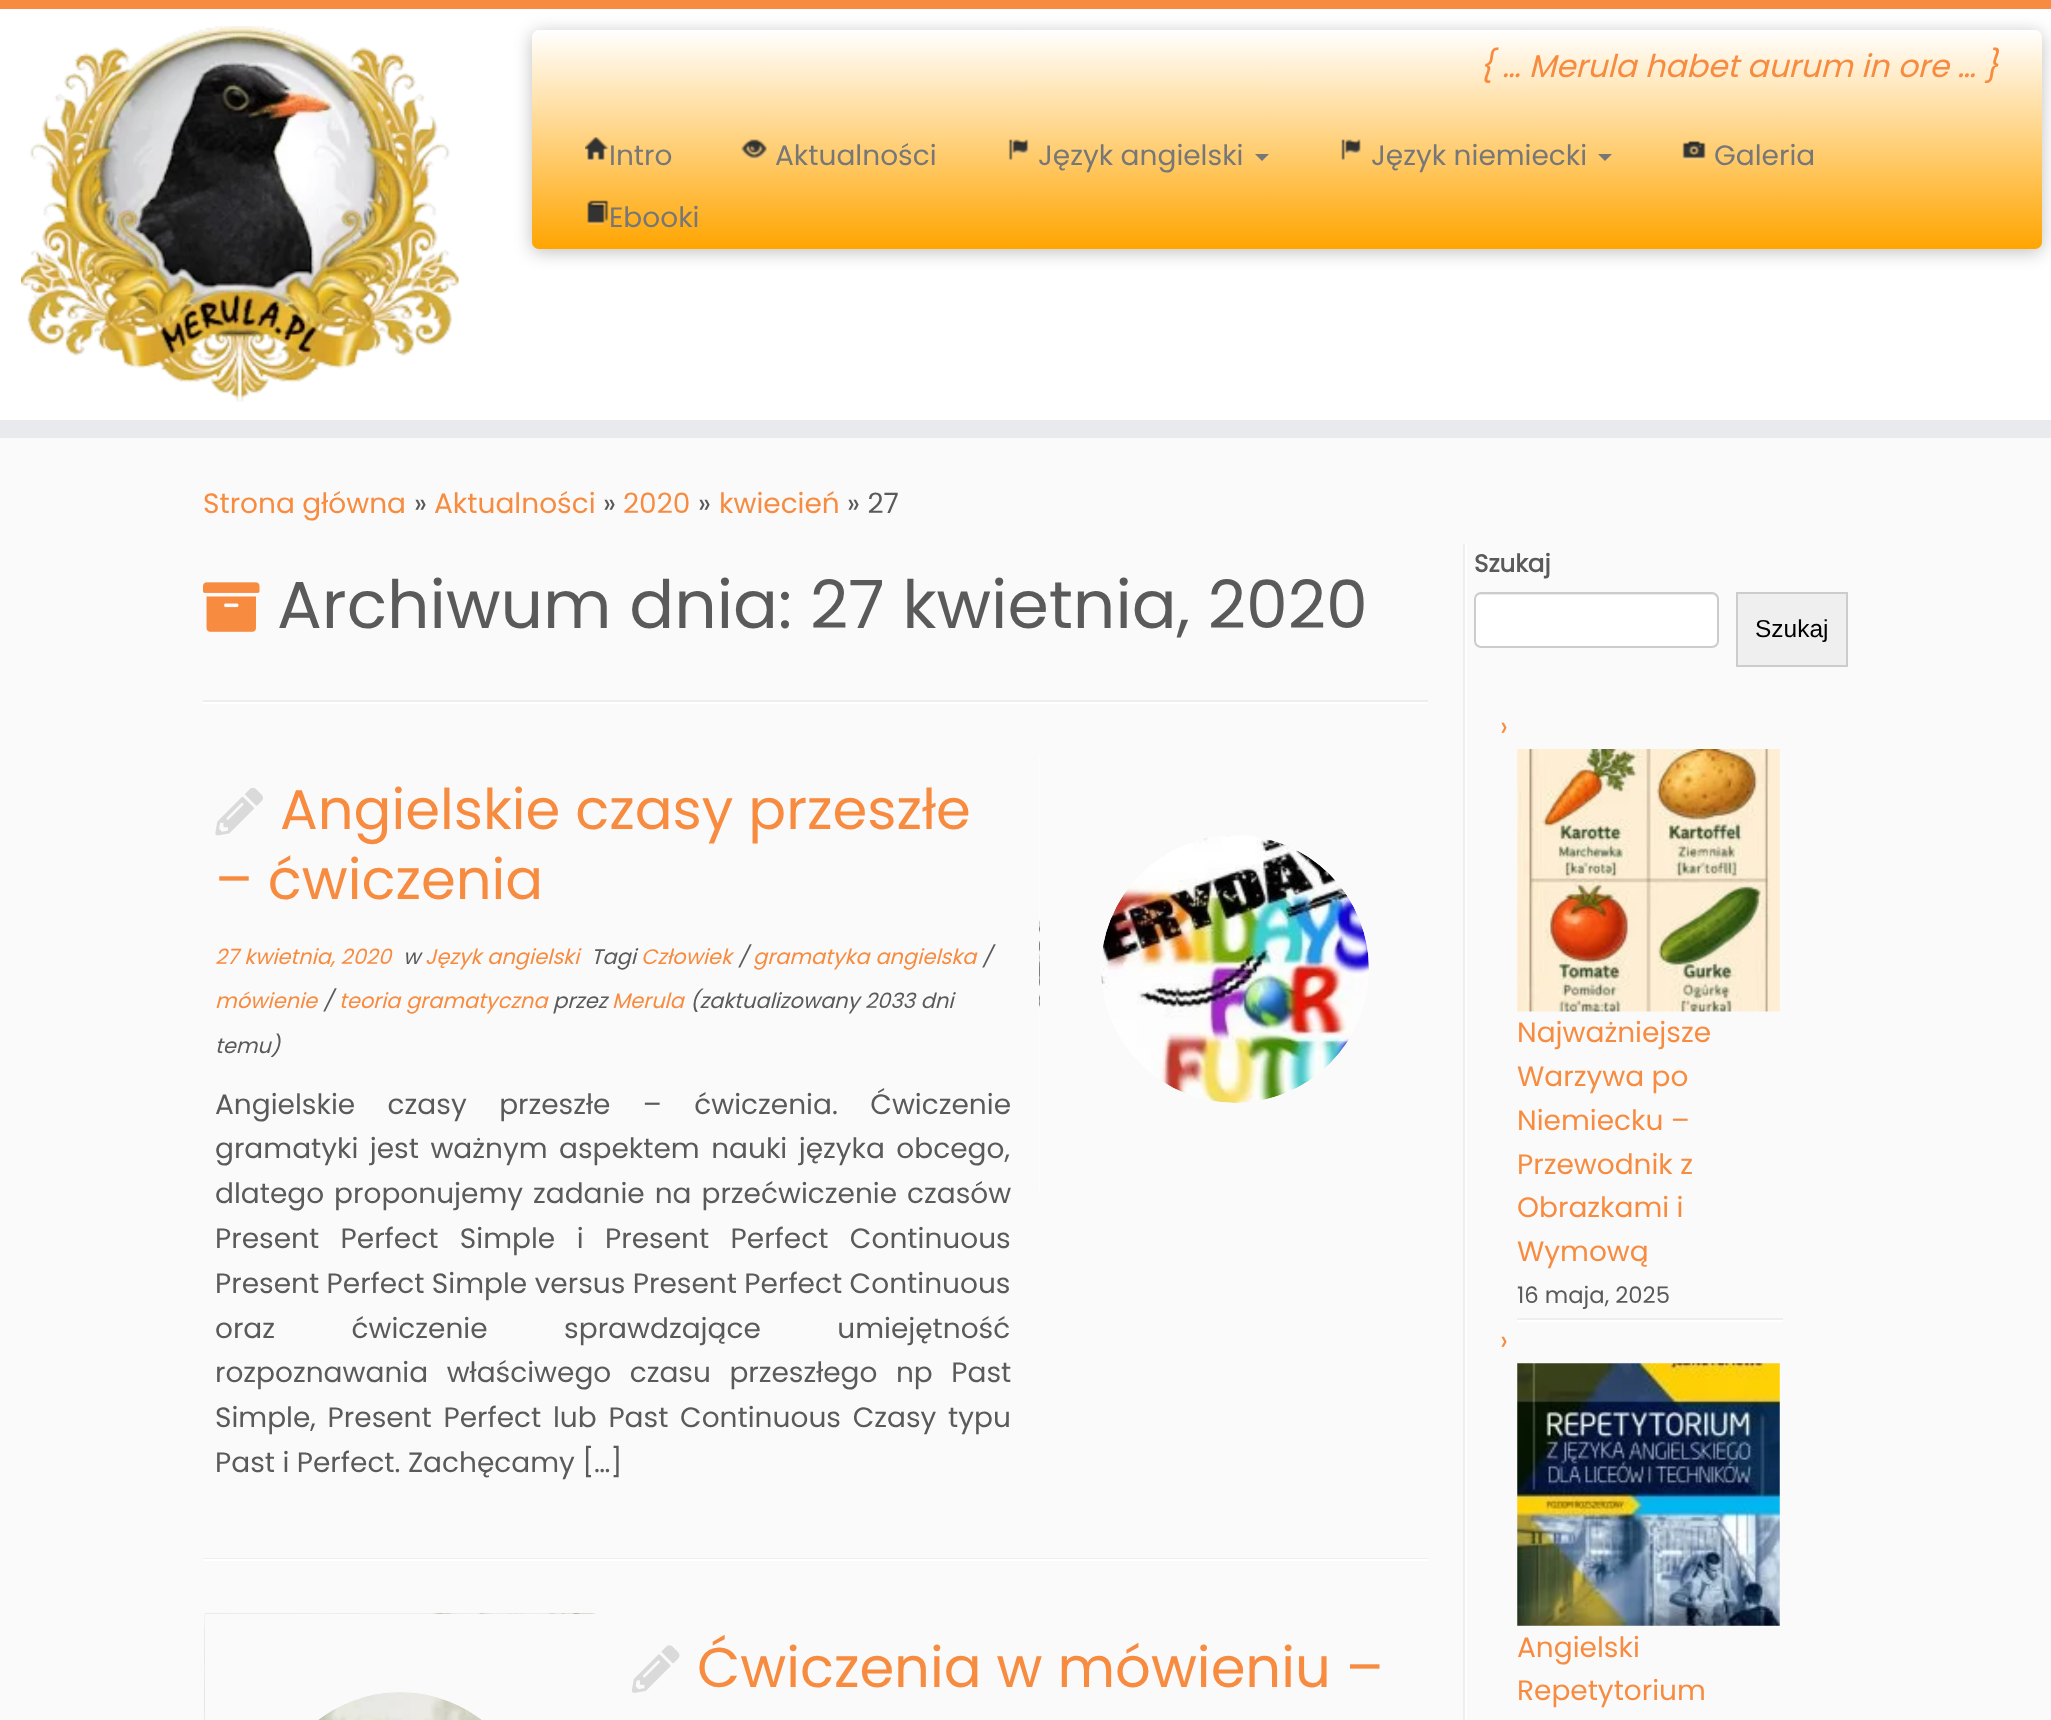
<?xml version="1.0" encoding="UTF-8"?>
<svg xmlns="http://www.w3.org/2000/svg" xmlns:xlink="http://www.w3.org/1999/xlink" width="2051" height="1720">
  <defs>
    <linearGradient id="g1" gradientUnits="userSpaceOnUse" x1="1287" y1="30" x2="1287" y2="249"><stop offset="0" stop-color="#ffffff" /><stop offset="1" stop-color="#ffa500" /></linearGradient>
    <clipPath id="clip1"><rect x="205" y="1614" width="390" height="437" /></clipPath>
    <clipPath id="clip2"><rect x="1040" y="756" width="390" height="438" /></clipPath>
  </defs>
  <rect width="100%" height="100%" fill="#fafafa" />
  <rect y="9" width="2051" height="411" fill="#ffffff" />
  <rect width="2051" height="9" fill="#f78c40" />
  <rect y="420" width="2051" height="18" fill="#e9eaee" />
  <image x="21" y="26" width="438" height="376" xlink:href="image1.png" />
  <rect x="532" y="33" width="1510" height="219" rx="7" fill="#000000" fill-opacity="0.25" filter="blur(9px)" />
  <rect x="532" y="30" width="1510" height="219" rx="7" fill="url(#g1)" />
  <image x="585" y="137" width="24" height="25" xlink:href="image2.png" />
  <image x="741" y="139" width="26" height="21" xlink:href="image3.png" />
  <image x="1008" y="139" width="21" height="23" xlink:href="image4.png" />
  <path d="M 1255 154 h 14 l -7 7 z" fill="#777777" />
  <image x="1341" y="139" width="20" height="23" xlink:href="image5.png" />
  <path d="M 1598 154 h 14 l -7 7 z" fill="#777777" />
  <image x="1682" y="140" width="24" height="20" xlink:href="image6.png" />
  <image x="587" y="200" width="22" height="25" xlink:href="image7.png" />
  <image x="203" y="582" width="57" height="50" xlink:href="image8.png" />
  <rect x="203" y="700" width="1225" height="2" fill="#eeeeee" />
  <rect x="203" y="702" width="1225" height="2" fill="#ffffff" />
  <image x="215" y="788" width="48" height="48" xlink:href="image9.png" />
  <image x="1039" y="756" width="330" height="434" xlink:href="image10.png" />
  <rect x="203" y="1558" width="1225" height="1" fill="#eeeeee" />
  <rect x="203" y="1559" width="1225" height="2" fill="#ffffff" />
  <image x="204" y="1613" width="391" height="107" xlink:href="image11.png" />
  <image x="631" y="1645" width="49" height="48" xlink:href="image12.png" />
  <rect x="1463" y="544" width="2" height="1176" fill="#eeeeee" />
  <rect x="1465" y="544" width="2" height="1176" fill="#ffffff" />
  <rect x="1474" y="592" width="245" height="56" rx="7" fill="#ffffff" />
  <path d="M 1480 595 h 232 c 2 0 5 2 5 5 c 0 -3 0 -6 -4 -7 h -234 c -4 1 -4 4 -4 7 c 0 -3 3 -5 5 -5 z" fill="#ececec" />
  <rect x="1475" y="593" width="243" height="54" rx="6" fill="none" stroke="#cccccc" stroke-width="2" />
  <rect x="1737" y="593" width="110" height="73" fill="#efefef" stroke="#cccccc" stroke-width="2" />
  <rect x="1517" y="1318" width="266" height="2" fill="#eeeeee" />
  <image x="1517" y="749" width="263" height="263" xlink:href="image13.png" />
  <rect x="1517" y="1320" width="266" height="2" fill="#ffffff" />
  <image x="1517" y="1363" width="263" height="263" xlink:href="image14.png" />
  <text x="1479" y="77" style="font-family: Poppins; font-size: 31.5px; font-style: italic; fill: #f78c40">{ … Merula habet aurum in ore … }</text>
  <text x="609" y="165" style="font-family: Poppins; font-size: 28px; fill: #777777">Intro</text>
  <text x="775" y="165" style="font-family: Poppins; font-size: 28px; fill: #777777">Aktualności</text>
  <text x="1038" y="165" style="font-family: Poppins; font-size: 28px; fill: #777777">Język angielski</text>
  <text x="1371" y="165" style="font-family: Poppins; font-size: 28px; fill: #777777">Język niemiecki</text>
  <text x="1714" y="165" style="font-family: Poppins; font-size: 28px; fill: #777777">Galeria</text>
  <text x="609" y="227" style="font-family: Poppins; font-size: 28px; fill: #777777">Ebooki</text>
  <text x="203" y="513" style="font-family: Poppins; font-size: 28px; fill: #f78c40">Strona główna</text>
  <text x="414" y="513" style="font-family: Poppins; font-size: 28px; fill: #5a5a5a">»</text>
  <text x="434" y="513" style="font-family: Poppins; font-size: 28px; fill: #f78c40">Aktualności</text>
  <text x="603" y="513" style="font-family: Poppins; font-size: 28px; fill: #5a5a5a">»</text>
  <text x="623" y="513" style="font-family: Poppins; font-size: 28px; fill: #f78c40">2020</text>
  <text x="698" y="513" style="font-family: Poppins; font-size: 28px; fill: #5a5a5a">»</text>
  <text x="719" y="513" style="font-family: Poppins; font-size: 28px; fill: #f78c40">kwiecień</text>
  <text x="847" y="513" style="font-family: Poppins; font-size: 28px; fill: #5a5a5a">» 27</text>
  <text x="277" y="628" style="font-family: Poppins; font-size: 66.5px; fill: #5a5a5a">Archiwum dnia: 27 kwietnia, 2020</text>
  <text x="280" y="829" style="font-family: Poppins; font-size: 56px; fill: #f78c40">Angielskie czasy przeszłe</text>
  <text x="215" y="899" style="font-family: Poppins; font-size: 56px; fill: #f78c40">– ćwiczenia</text>
  <text x="215" y="964" style="font-family: Poppins; font-size: 21px; font-style: italic; fill: #f78c40">27 kwietnia, 2020</text>
  <text x="403" y="964" style="font-family: Poppins; font-size: 21px; font-style: italic; fill: #5a5a5a">w</text>
  <text x="425" y="964" style="font-family: Poppins; font-size: 21px; font-style: italic; fill: #f78c40">Język angielski</text>
  <text x="591" y="964" style="font-family: Poppins; font-size: 21px; font-style: italic; fill: #5a5a5a">Tagi</text>
  <text x="641" y="964" style="font-family: Poppins; font-size: 21px; font-style: italic; fill: #f78c40">Człowiek</text>
  <text x="738" y="964" style="font-family: Poppins; font-size: 21px; font-style: italic; fill: #5a5a5a">/</text>
  <text x="753" y="964" style="font-family: Poppins; font-size: 21px; font-style: italic; fill: #f78c40">gramatyka angielska</text>
  <text x="982" y="964" style="font-family: Poppins; font-size: 21px; font-style: italic; fill: #5a5a5a">/</text>
  <text x="215" y="1008" style="font-family: Poppins; font-size: 21px; font-style: italic; fill: #f78c40">mówienie</text>
  <text x="323" y="1008" style="font-family: Poppins; font-size: 21px; font-style: italic; fill: #5a5a5a">/</text>
  <text x="339" y="1008" style="font-family: Poppins; font-size: 21px; font-style: italic; fill: #f78c40">teoria gramatyczna</text>
  <text x="553" y="1008" style="font-family: Poppins; font-size: 21px; font-style: italic; fill: #5a5a5a">przez</text>
  <text x="612" y="1008" style="font-family: Poppins; font-size: 21px; font-style: italic; fill: #f78c40">Merula</text>
  <text x="690" y="1008" style="font-family: Poppins; font-size: 21px; font-style: italic; fill: #5a5a5a">(zaktualizowany 2033 dni</text>
  <text x="215" y="1053" style="font-family: Poppins; font-size: 21px; font-style: italic; fill: #5a5a5a">temu)</text>
  <text x="215" y="1114" word-spacing="25" style="font-family: Poppins; font-size: 28px; fill: #5a5a5a">Angielskie czasy przeszłe – ćwiczenia. Ćwiczenie</text>
  <text x="215" y="1158" word-spacing="4" style="font-family: Poppins; font-size: 28px; fill: #5a5a5a">gramatyki jest ważnym aspektem nauki języka obcego,</text>
  <text x="215" y="1203" word-spacing="2.5" style="font-family: Poppins; font-size: 28px; fill: #5a5a5a">dlatego proponujemy zadanie na przećwiczenie czasów</text>
  <text x="215" y="1248" word-spacing="14" style="font-family: Poppins; font-size: 28px; fill: #5a5a5a">Present Perfect Simple i Present Perfect Continuous</text>
  <text x="215" y="1293" style="font-family: Poppins; font-size: 28px; fill: #5a5a5a">Present Perfect Simple versus Present Perfect Continuous</text>
  <text x="215" y="1338" word-spacing="69" style="font-family: Poppins; font-size: 28px; fill: #5a5a5a">oraz ćwiczenie sprawdzające umiejętność</text>
  <text x="215" y="1382" word-spacing="11" style="font-family: Poppins; font-size: 28px; fill: #5a5a5a">rozpoznawania właściwego czasu przeszłego np Past</text>
  <text x="215" y="1427" word-spacing="4.25" style="font-family: Poppins; font-size: 28px; fill: #5a5a5a">Simple, Present Perfect lub Past Continuous Czasy typu</text>
  <text x="215" y="1472" style="font-family: Poppins; font-size: 28px; fill: #5a5a5a">Past i Perfect. Zachęcamy […]</text>
  <text x="697" y="1687" style="font-family: Poppins; font-size: 56px; fill: #f78c40">Ćwiczenia w mówieniu –</text>
  <g clip-path="url(#clip1)">
    <circle cx="400" cy="1826" r="225" fill="none" stroke="#fafafa" stroke-width="182" />
    <circle cx="400" cy="1826" r="225" fill="none" stroke="#fafafa" stroke-width="182" />
  </g>
  <text x="1474" y="572" style="font-family: Poppins; font-size: 24.5px; font-weight: bold; fill: #5a5a5a">Szukaj</text>
  <text x="1755" y="637" style="font-family: Liberation Sans; font-size: 24.5px; fill: #000000">Szukaj</text>
  <text x="1500" y="736" style="font-family: Poppins; font-size: 28px; fill: #f78c40">›</text>
  <text x="1517" y="1042" style="font-family: Poppins; font-size: 28px; fill: #f78c40">Najważniejsze</text>
  <text x="1517" y="1086" style="font-family: Poppins; font-size: 28px; fill: #f78c40">Warzywa po</text>
  <text x="1517" y="1130" style="font-family: Poppins; font-size: 28px; fill: #f78c40">Niemiecku –</text>
  <text x="1517" y="1174" style="font-family: Poppins; font-size: 28px; fill: #f78c40">Przewodnik z</text>
  <text x="1517" y="1217" style="font-family: Poppins; font-size: 28px; fill: #f78c40">Obrazkami i</text>
  <text x="1517" y="1261" style="font-family: Poppins; font-size: 28px; fill: #f78c40">Wymową</text>
  <g clip-path="url(#clip2)">
    <circle cx="1235" cy="969" r="225" fill="none" stroke="#fafafa" stroke-width="182" />
    <circle cx="1235" cy="969" r="225" fill="none" stroke="#fafafa" stroke-width="182" />
  </g>
  <text x="1517" y="1303" style="font-family: Poppins; font-size: 22.75px; fill: #5a5a5a">16 maja, 2025</text>
  <text x="1500" y="1350" style="font-family: Poppins; font-size: 28px; fill: #f78c40">›</text>
  <text x="1517" y="1657" style="font-family: Poppins; font-size: 28px; fill: #f78c40">Angielski</text>
  <text x="1517" y="1700" style="font-family: Poppins; font-size: 28px; fill: #f78c40">Repetytorium</text>
</svg>
